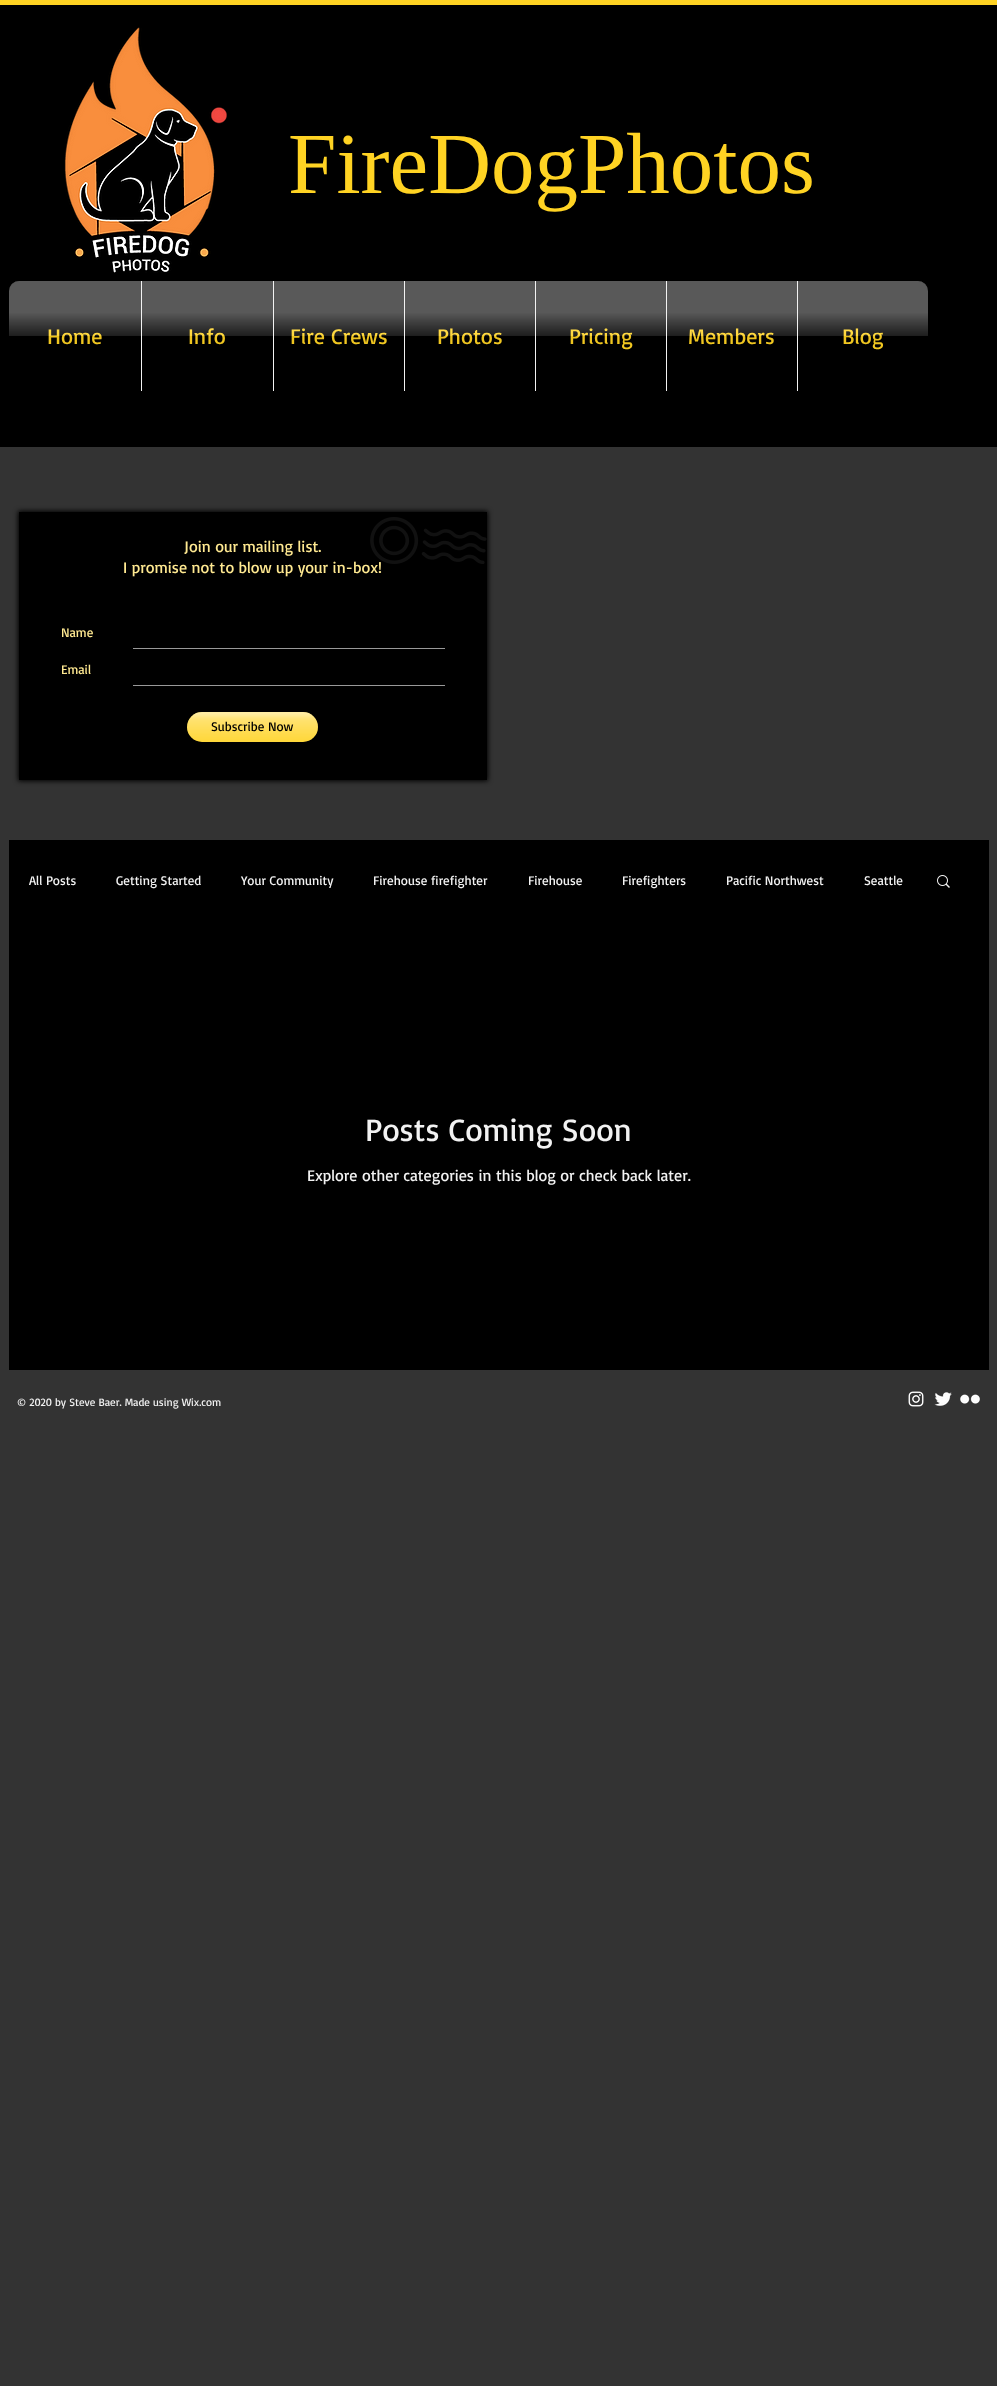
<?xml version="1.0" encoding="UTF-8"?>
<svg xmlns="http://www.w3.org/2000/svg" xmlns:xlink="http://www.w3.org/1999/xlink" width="997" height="2386">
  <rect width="100%" height="100%" fill="#333333" />
  <rect y="5" width="997" height="442" fill="#000000" />
  <rect width="997" height="5" fill="#ffd323" />
  <image x="64" y="27" width="163" height="246" xlink:href="image1.png" />
  <image x="9" y="281" width="919" height="10" xlink:href="image2.png" />
  <path d="M 19 281 h 122 v 110 h -122 c -5.5 0 -10 -4.5 -10 -10 v -90 c 0 -5.5 4.5 -10 10 -10 z" fill="#000000" />
  <rect x="142" y="281" width="131" height="10" fill="#000000" />
  <rect x="141" y="281" width="1" height="110" fill="#f2f2f2" />
  <rect x="274" y="281" width="130" height="10" fill="#000000" />
  <rect x="273" y="281" width="1" height="110" fill="#f2f2f2" />
  <rect x="405" y="281" width="130" height="10" fill="#000000" />
  <rect x="404" y="281" width="1" height="110" fill="#f2f2f2" />
  <rect x="536" y="281" width="130" height="10" fill="#000000" />
  <rect x="535" y="281" width="1" height="110" fill="#f2f2f2" />
  <rect x="667" y="281" width="130" height="10" fill="#000000" />
  <rect x="666" y="281" width="1" height="110" fill="#f2f2f2" />
  <path d="M 797 281 h 121 c 5.5 0 10 4.5 10 10 v 90 c 0 5.5 -4.5 10 -10 10 h -121 z" fill="#000000" />
  <rect x="797" y="281" width="1" height="110" fill="#f2f2f2" />
  <rect x="18" y="511" width="470" height="270" fill="#000000" filter="blur(2.5px)" />
  <rect x="19" y="512" width="468" height="268" fill="#000000" />
  <image x="370" y="517" width="117" height="47" xlink:href="image10.png" />
  <rect x="133" y="648" width="312" height="1" fill="#999999" />
  <rect x="133" y="685" width="312" height="1" fill="#999999" />
  <rect x="187" y="712" width="131" height="30" rx="15" fill="#ffd323" />
  <image x="187" y="712" width="131" height="30" xlink:href="image11.png" />
  <rect x="9" y="840" width="980" height="530" fill="#000000" />
  <image x="937" y="875" width="13" height="13" xlink:href="image12.png" />
  <image x="908" y="1391" width="16" height="16" xlink:href="image13.png" />
  <image x="934" y="1392" width="18" height="14" xlink:href="image14.png" />
  <image x="960" y="1394" width="20" height="10" xlink:href="image15.png" />
  <text x="288" y="193" style="font-family: Liberation Serif; font-size: 87px; fill: #ffd323">FireDogPhotos</text>
  <text x="47" y="344" style="font-family: Basic; font-size: 22px; fill: #ffd323">Home</text>
  <image x="9" y="281" width="132" height="63" xlink:href="image3.png" />
  <text x="188" y="344" style="font-family: Basic; font-size: 22px; fill: #ffd323">Info</text>
  <image x="142" y="281" width="131" height="63" xlink:href="image4.png" />
  <text x="290" y="344" style="font-family: Basic; font-size: 22px; fill: #ffd323">Fire Crews</text>
  <image x="274" y="281" width="130" height="63" xlink:href="image5.png" />
  <text x="437" y="344" style="font-family: Basic; font-size: 22px; fill: #ffd323">Photos</text>
  <image x="405" y="281" width="130" height="63" xlink:href="image6.png" />
  <text x="569" y="344" style="font-family: Basic; font-size: 22px; fill: #ffd323">Pricing</text>
  <image x="536" y="281" width="130" height="68" xlink:href="image7.png" />
  <text x="688" y="344" style="font-family: Basic; font-size: 22px; fill: #ffd323">Members</text>
  <image x="667" y="281" width="130" height="63" xlink:href="image8.png" />
  <text x="842" y="344" style="font-family: Basic; font-size: 22px; fill: #ffd323">Blog</text>
  <image x="798" y="281" width="130" height="68" xlink:href="image9.png" />
  <text x="184" y="552" style="font-family: Basic; font-size: 16px; fill: #ffe991">Join our mailing list.</text>
  <text x="123" y="573" style="font-family: Basic; font-size: 16px; fill: #ffe991">I promise not to blow up your in-box!</text>
  <text x="61" y="637" style="font-family: Basic; font-size: 13px; fill: #ffe991">Name</text>
  <text x="61" y="674" style="font-family: Basic; font-size: 13px; fill: #ffe991">Email</text>
  <text x="211" y="731" style="font-family: Basic; font-size: 13px; fill: #000000">Subscribe Now</text>
  <text x="29" y="885" style="font-family: Basic; font-size: 13px; fill: #f2f2f2">All Posts</text>
  <text x="116" y="885" style="font-family: Basic; font-size: 13px; fill: #f2f2f2">Getting Started</text>
  <text x="241" y="885" style="font-family: Basic; font-size: 13px; fill: #f2f2f2">Your Community</text>
  <text x="373" y="885" style="font-family: Basic; font-size: 13px; fill: #f2f2f2">Firehouse firefighter</text>
  <text x="528" y="885" style="font-family: Basic; font-size: 13px; fill: #f2f2f2">Firehouse</text>
  <text x="622" y="885" style="font-family: Basic; font-size: 13px; fill: #f2f2f2">Firefighters</text>
  <text x="726" y="885" style="font-family: Basic; font-size: 13px; fill: #f2f2f2">Pacific Northwest</text>
  <text x="864" y="885" style="font-family: Basic; font-size: 13px; fill: #f2f2f2">Seattle</text>
  <text x="365" y="1141" style="font-family: Basic; font-size: 32px; fill: #f2f2f2">Posts Coming Soon</text>
  <text x="307" y="1181" style="font-family: Basic; font-size: 16px; fill: #f2f2f2">Explore other categories in this blog or check back later.</text>
  <text x="17" y="1406" style="font-family: Basic; font-size: 11px; fill: #f2f2f2">© 2020 by Steve Baer. Made using Wix.com</text>
</svg>
